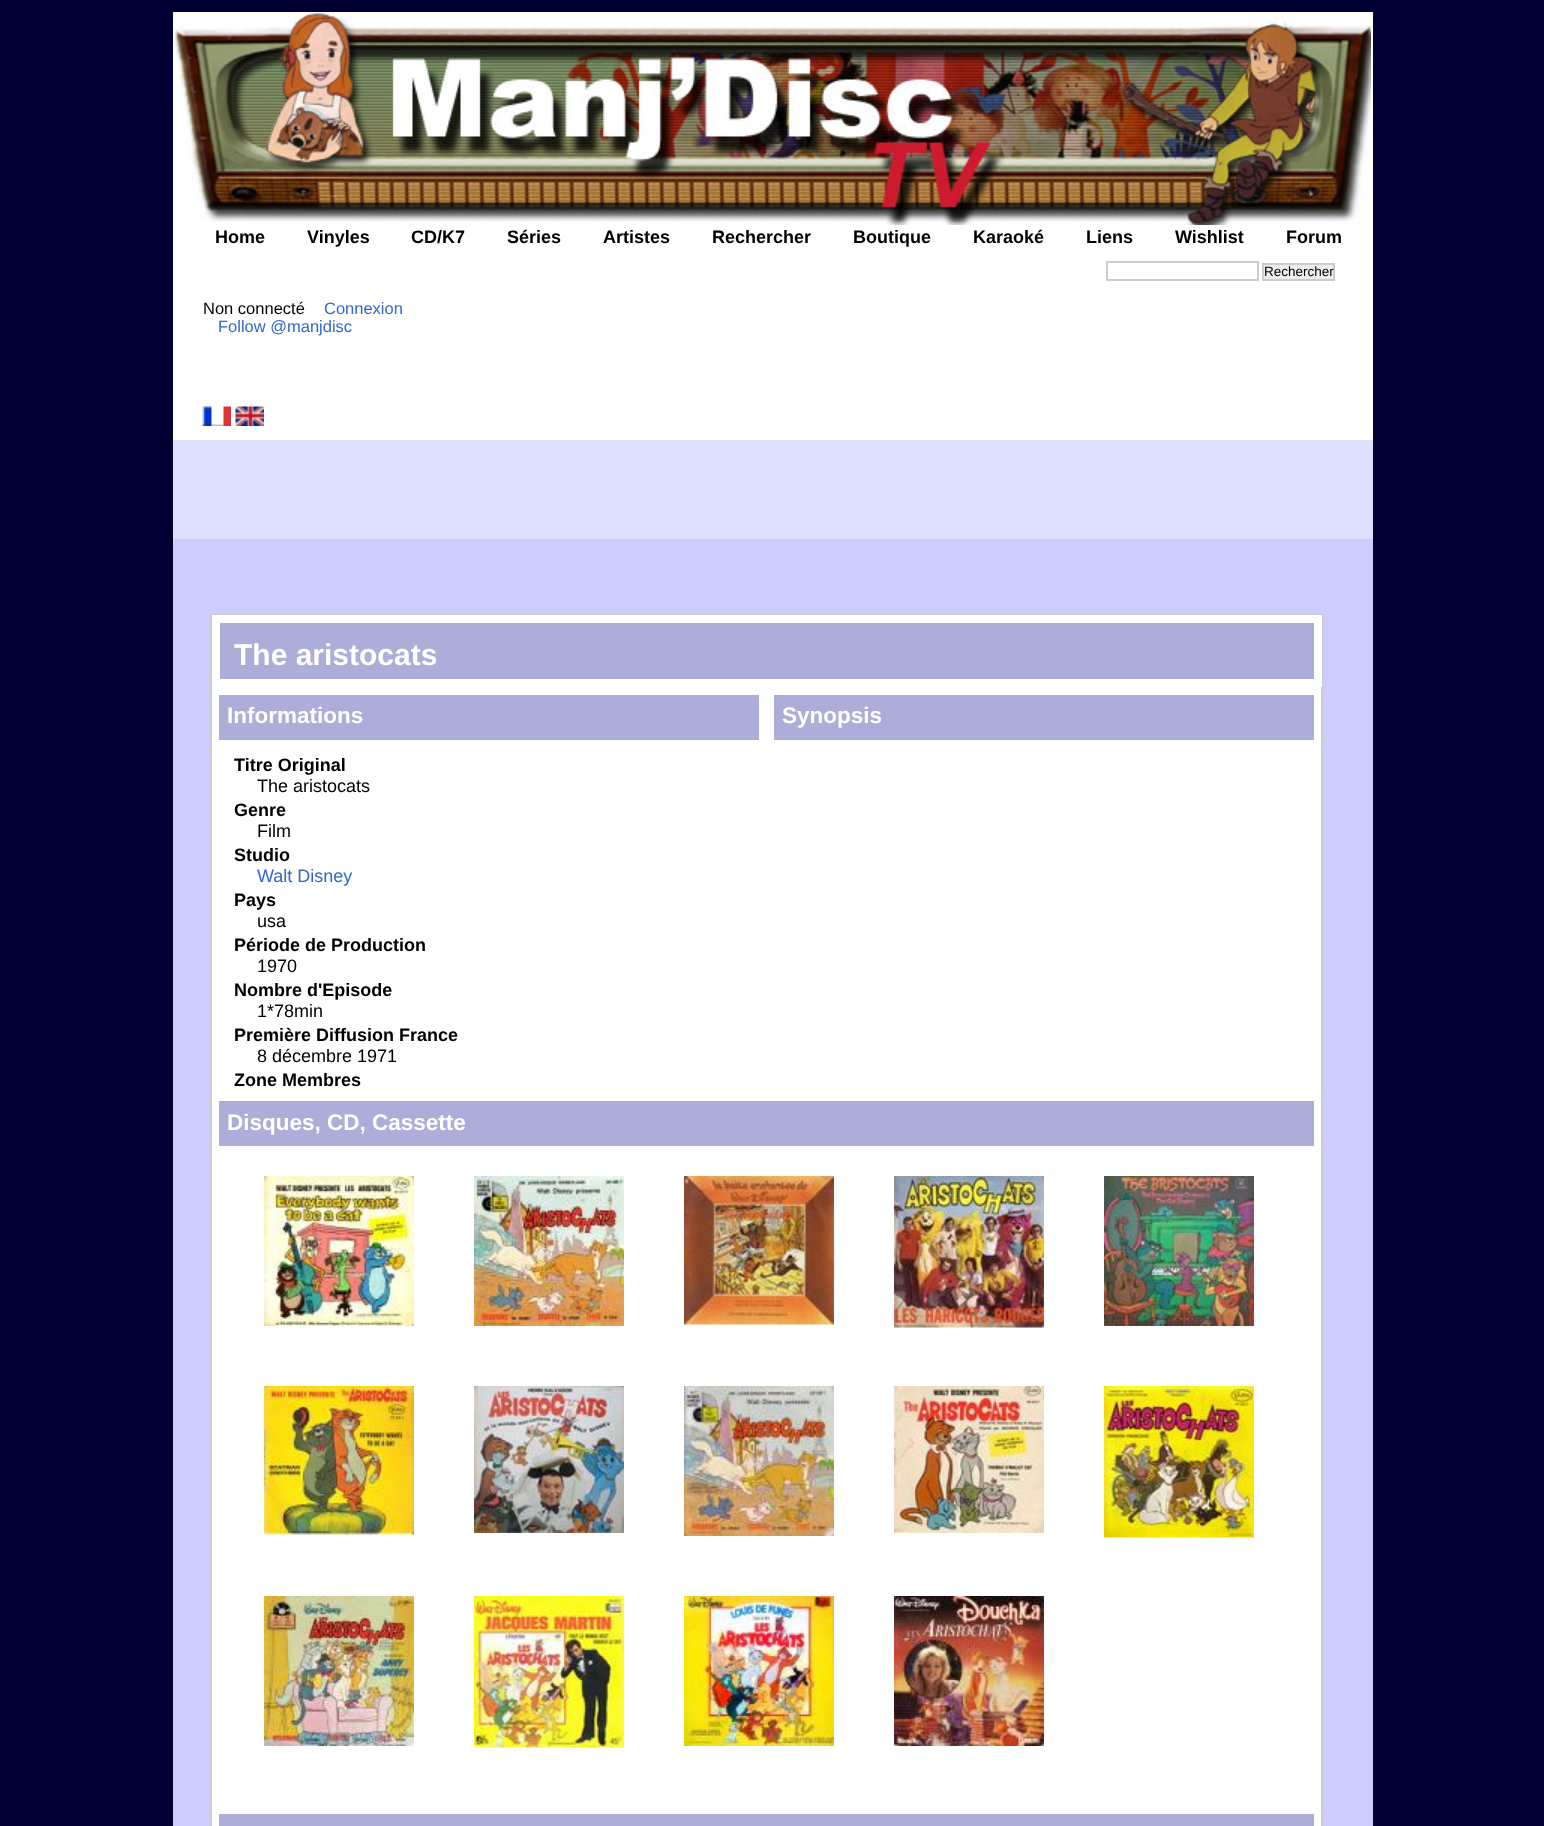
<?xml version="1.0" encoding="UTF-8"?>
<svg xmlns="http://www.w3.org/2000/svg" xmlns:xlink="http://www.w3.org/1999/xlink" width="1544" height="1826">
  <rect width="100%" height="100%" fill="#000033" />
  <rect x="173" y="440" width="1200" height="99" fill="#dfdfff" />
  <rect x="173" y="12" width="1200" height="428" fill="#ffffff" />
  <image x="174" y="13" width="1197" height="212" xlink:href="image1.png" />
  <rect x="1107" y="262" width="151" height="18" fill="none" stroke="#cccccc" stroke-width="2" />
  <rect x="1263" y="264" width="71" height="16" fill="#eeeeee" stroke="#cccccc" stroke-width="2" />
  <image x="202" y="406" width="29" height="20" xlink:href="image2.png" />
  <image x="235" y="406" width="29" height="20" xlink:href="image3.png" />
  <rect x="173" y="539" width="1200" height="1287" fill="#ccccff" />
  <rect x="212" y="687" width="1109" height="1139" fill="#ffffff" />
  <rect x="211" y="615" width="1111" height="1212" fill="none" stroke="#cccccc" stroke-width="2" />
  <rect x="216" y="619" width="1102" height="64" fill="#adadd9" stroke="#ffffff" stroke-width="8" />
  <rect x="219" y="695" width="540" height="45" fill="#adadd9" />
  <rect x="774" y="695" width="540" height="45" fill="#adadd9" />
  <rect x="219" y="1101" width="1095" height="45" fill="#adadd9" />
  <image x="264" y="1176" width="150" height="150" xlink:href="image4.png" />
  <image x="474" y="1176" width="150" height="150" xlink:href="image5.png" />
  <image x="684" y="1176" width="150" height="149" xlink:href="image6.png" />
  <image x="894" y="1176" width="150" height="152" xlink:href="image7.png" />
  <image x="1104" y="1176" width="150" height="150" xlink:href="image8.png" />
  <image x="264" y="1386" width="150" height="149" xlink:href="image9.png" />
  <image x="474" y="1386" width="150" height="147" xlink:href="image10.png" />
  <image x="684" y="1386" width="150" height="150" xlink:href="image11.png" />
  <image x="894" y="1386" width="150" height="147" xlink:href="image12.png" />
  <image x="1104" y="1386" width="150" height="152" xlink:href="image13.png" />
  <image x="264" y="1596" width="150" height="150" xlink:href="image14.png" />
  <image x="474" y="1596" width="150" height="152" xlink:href="image15.png" />
  <image x="684" y="1596" width="150" height="150" xlink:href="image16.png" />
  <image x="894" y="1596" width="150" height="150" xlink:href="image17.png" />
  <rect x="219" y="1814" width="1095" height="12" fill="#adadd9" />
  <text x="215" y="243" style="font-family: Liberation Sans; font-size: 18px; font-weight: bold; fill: #000000">Home</text>
  <text x="307" y="243" style="font-family: Liberation Sans; font-size: 18px; font-weight: bold; fill: #000000">Vinyles</text>
  <text x="411" y="243" style="font-family: Liberation Sans; font-size: 18px; font-weight: bold; fill: #000000">CD/K7</text>
  <text x="507" y="243" style="font-family: Liberation Sans; font-size: 18px; font-weight: bold; fill: #000000">Séries</text>
  <text x="603" y="243" style="font-family: Liberation Sans; font-size: 18px; font-weight: bold; fill: #000000">Artistes</text>
  <text x="712" y="243" style="font-family: Liberation Sans; font-size: 18px; font-weight: bold; fill: #000000">Rechercher</text>
  <text x="853" y="243" style="font-family: Liberation Sans; font-size: 18px; font-weight: bold; fill: #000000">Boutique</text>
  <text x="973" y="243" style="font-family: Liberation Sans; font-size: 18px; font-weight: bold; fill: #000000">Karaoké</text>
  <text x="1086" y="243" style="font-family: Liberation Sans; font-size: 18px; font-weight: bold; fill: #000000">Liens</text>
  <text x="1175" y="243" style="font-family: Liberation Sans; font-size: 18px; font-weight: bold; fill: #000000">Wishlist</text>
  <text x="1286" y="243" style="font-family: Liberation Sans; font-size: 18px; font-weight: bold; fill: #000000">Forum</text>
  <text x="1264" y="276" style="font-family: Liberation Sans; font-size: 13.5px; fill: #000000">Rechercher</text>
  <text x="203" y="314" style="font-family: Liberation Sans; font-size: 16.5px; fill: #000000">Non connecté</text>
  <text x="324" y="314" style="font-family: Liberation Sans; font-size: 16.5px; fill: #3366cc">Connexion</text>
  <text x="218" y="332" style="font-family: Liberation Sans; font-size: 16.5px; fill: #3366cc">Follow @manjdisc</text>
  <text x="234" y="665" style="font-family: Liberation Sans; font-size: 30px; font-weight: bold; fill: #ffffff">The aristocats</text>
  <text x="227" y="723" style="font-family: Liberation Sans; font-size: 22.5px; font-weight: bold; fill: #ffffff">Informations</text>
  <text x="234" y="771" style="font-family: Liberation Sans; font-size: 18px; font-weight: bold; fill: #000000">Titre Original</text>
  <text x="257" y="792" style="font-family: Liberation Sans; font-size: 18px; fill: #000000">The aristocats</text>
  <text x="234" y="816" style="font-family: Liberation Sans; font-size: 18px; font-weight: bold; fill: #000000">Genre</text>
  <text x="257" y="837" style="font-family: Liberation Sans; font-size: 18px; fill: #000000">Film</text>
  <text x="234" y="861" style="font-family: Liberation Sans; font-size: 18px; font-weight: bold; fill: #000000">Studio</text>
  <text x="257" y="882" style="font-family: Liberation Sans; font-size: 18px; fill: #3366cc">Walt Disney</text>
  <text x="234" y="906" style="font-family: Liberation Sans; font-size: 18px; font-weight: bold; fill: #000000">Pays</text>
  <text x="257" y="927" style="font-family: Liberation Sans; font-size: 18px; fill: #000000">usa</text>
  <text x="234" y="951" style="font-family: Liberation Sans; font-size: 18px; font-weight: bold; fill: #000000">Période de Production</text>
  <text x="257" y="972" style="font-family: Liberation Sans; font-size: 18px; fill: #000000">1970</text>
  <text x="234" y="996" style="font-family: Liberation Sans; font-size: 18px; font-weight: bold; fill: #000000">Nombre d'Episode</text>
  <text x="257" y="1017" style="font-family: Liberation Sans; font-size: 18px; fill: #000000">1*78min</text>
  <text x="234" y="1041" style="font-family: Liberation Sans; font-size: 18px; font-weight: bold; fill: #000000">Première Diffusion France</text>
  <text x="257" y="1062" style="font-family: Liberation Sans; font-size: 18px; fill: #000000">8 décembre 1971</text>
  <text x="234" y="1086" style="font-family: Liberation Sans; font-size: 18px; font-weight: bold; fill: #000000">Zone Membres</text>
  <text x="782" y="723" style="font-family: Liberation Sans; font-size: 22.5px; font-weight: bold; fill: #ffffff">Synopsis</text>
  <text x="227" y="1130" style="font-family: Liberation Sans; font-size: 22.5px; font-weight: bold; fill: #ffffff">Disques, CD, Cassette</text>
</svg>
